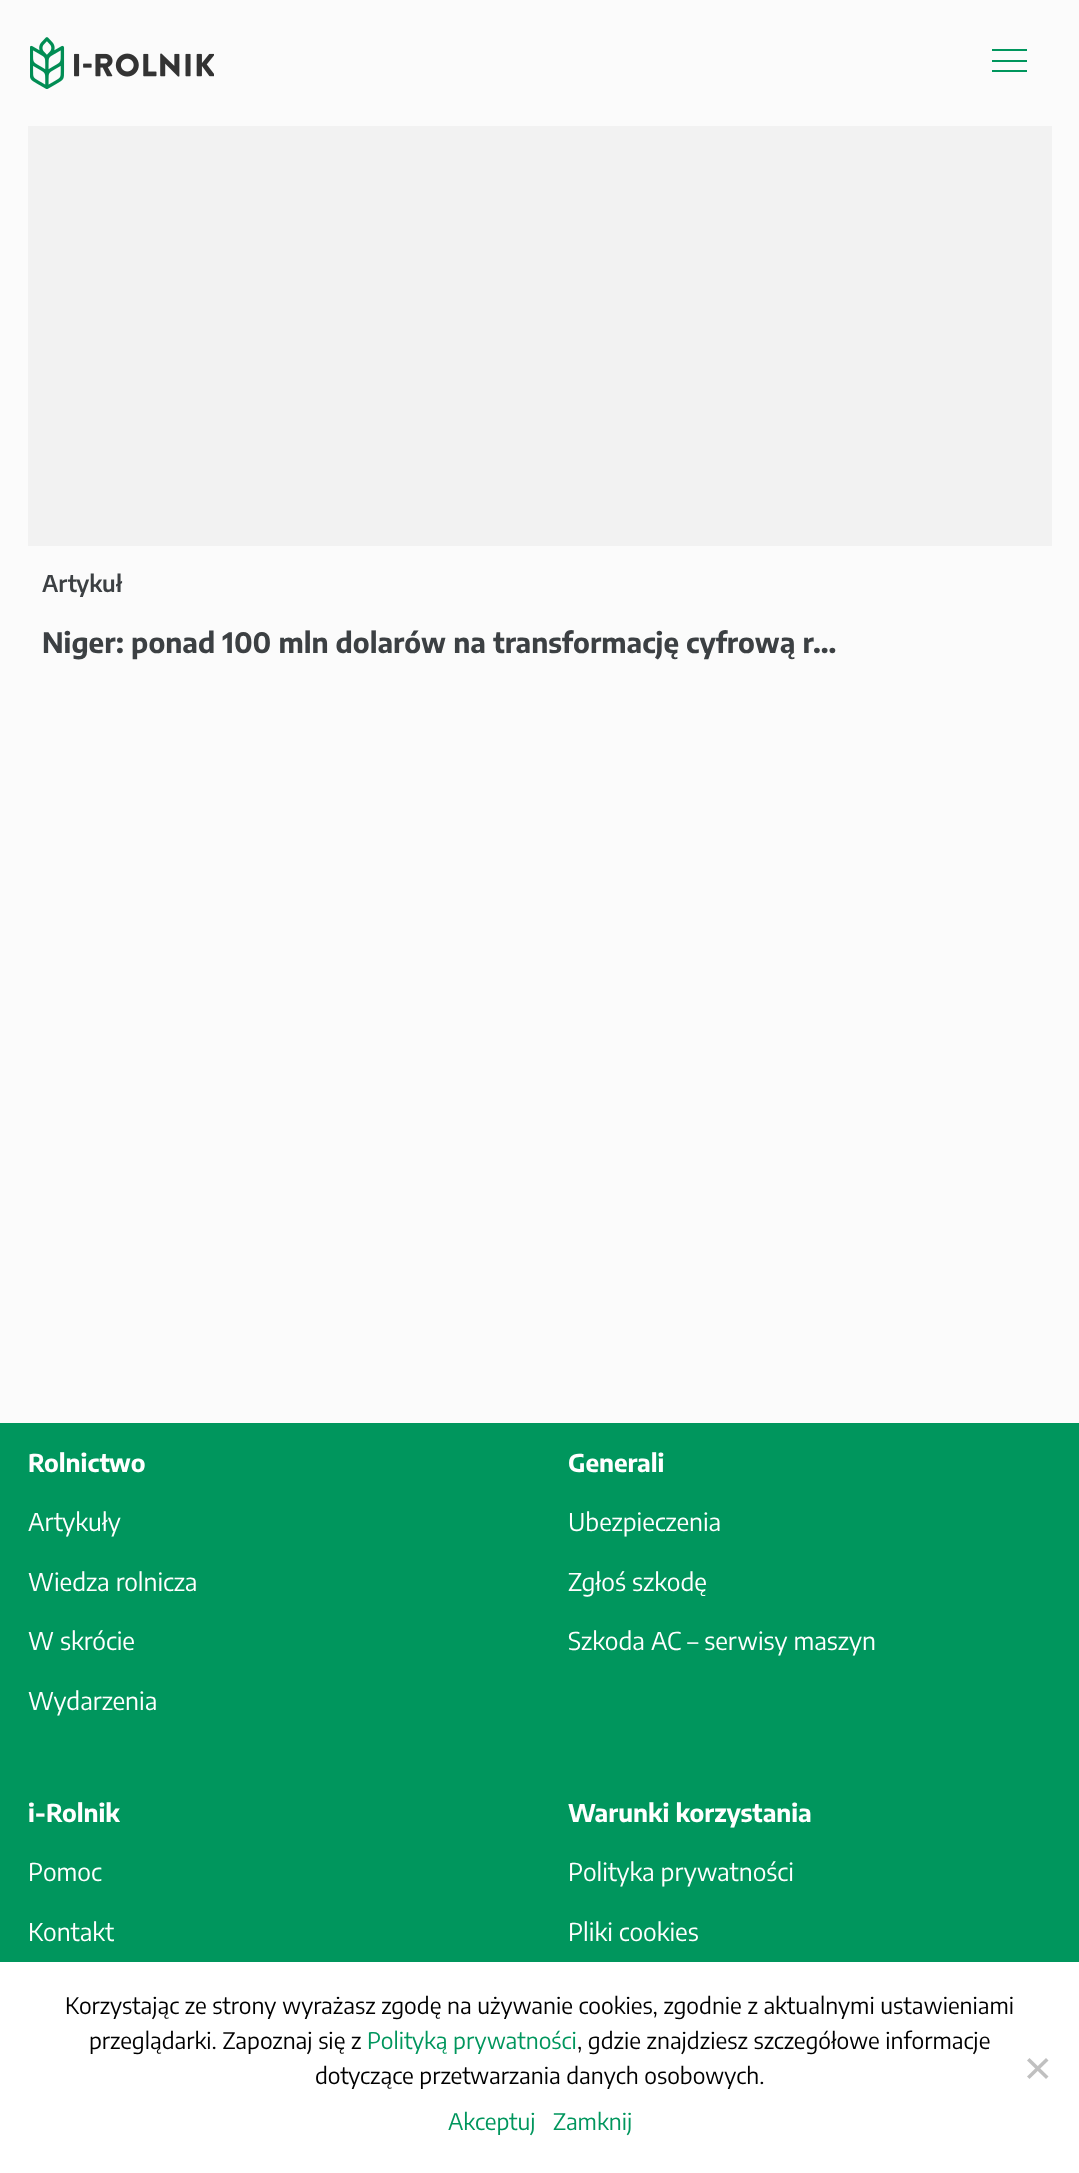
<?xml version="1.0" encoding="UTF-8"?>
<svg xmlns="http://www.w3.org/2000/svg" xmlns:xlink="http://www.w3.org/1999/xlink" width="1079" height="2173">
  <rect width="100%" height="100%" fill="#fbfbfb" />
  <image x="30" y="37" width="184" height="52" xlink:href="image1.png" />
  <rect x="992" y="60" width="35" height="2" fill="#00965d" />
  <rect x="992" y="49" width="35" height="2" fill="#00965d" />
  <rect x="992" y="70" width="35" height="2" fill="#00965d" />
  <rect x="28" y="126" width="1024" height="420" fill="#f2f2f2" />
  <rect y="1423" width="1079" height="539" fill="#00965d" />
  <rect y="1962" width="1079" height="211" fill="#ffffff" />
  <path d="M 1046 2058 l 2.5 2.5 l -19 18.5 l -2.5 -2.5 z" fill="#c0c0c0" />
  <path d="M 1027 2060.5 l 2.5 -2.5 l 19 18.5 l -2.5 2.5 z" fill="#c0c0c0" />
  <text x="42" y="592" style="font-family: Encode Sans Condensed; font-size: 23px; font-weight: 600; fill: #3c4043">Artykuł</text>
  <text x="42" y="653" style="font-family: Encode Sans Condensed; font-size: 28px; font-weight: bold; fill: #3c4043">Niger: ponad 100 mln dolarów na transformację cyfrową r...</text>
  <text x="28" y="1472" style="font-family: Encode Sans Condensed; font-size: 24.5px; font-weight: bold; fill: #ffffff">Rolnictwo</text>
  <text x="28" y="1531" style="font-family: Encode Sans Condensed; font-size: 24.5px; fill: #ffffff">Artykuły</text>
  <text x="28" y="1591" style="font-family: Encode Sans Condensed; font-size: 24.5px; fill: #ffffff">Wiedza rolnicza</text>
  <text x="28" y="1650" style="font-family: Encode Sans Condensed; font-size: 24.5px; fill: #ffffff">W skrócie</text>
  <text x="28" y="1710" style="font-family: Encode Sans Condensed; font-size: 24.5px; fill: #ffffff">Wydarzenia</text>
  <text x="568" y="1472" style="font-family: Encode Sans Condensed; font-size: 24.5px; font-weight: bold; fill: #ffffff">Generali</text>
  <text x="568" y="1531" style="font-family: Encode Sans Condensed; font-size: 24.5px; fill: #ffffff">Ubezpieczenia</text>
  <text x="568" y="1591" style="font-family: Encode Sans Condensed; font-size: 24.5px; fill: #ffffff">Zgłoś szkodę</text>
  <text x="568" y="1650" style="font-family: Encode Sans Condensed; font-size: 24.5px; fill: #ffffff">Szkoda AC – serwisy maszyn</text>
  <text x="28" y="1822" style="font-family: Encode Sans Condensed; font-size: 24.5px; font-weight: bold; fill: #ffffff">i-Rolnik</text>
  <text x="28" y="1881" style="font-family: Encode Sans Condensed; font-size: 24.5px; fill: #ffffff">Pomoc</text>
  <text x="28" y="1941" style="font-family: Encode Sans Condensed; font-size: 24.5px; fill: #ffffff">Kontakt</text>
  <text x="568" y="1822" style="font-family: Encode Sans Condensed; font-size: 24.5px; font-weight: bold; fill: #ffffff">Warunki korzystania</text>
  <text x="568" y="1881" style="font-family: Encode Sans Condensed; font-size: 24.5px; fill: #ffffff">Polityka prywatności</text>
  <text x="568" y="1941" style="font-family: Encode Sans Condensed; font-size: 24.5px; fill: #ffffff">Pliki cookies</text>
  <text x="65" y="2014" style="font-family: Encode Sans Condensed; font-size: 22.75px; fill: #000000">Korzystając ze strony wyrażasz zgodę na używanie cookies, zgodnie z aktualnymi ustawieniami</text>
  <text x="89" y="2049" style="font-family: Encode Sans Condensed; font-size: 22.75px; fill: #000000">przeglądarki. Zapoznaj się z</text>
  <text x="367" y="2049" style="font-family: Encode Sans Condensed; font-size: 22.75px; fill: #00965d">Polityką prywatności</text>
  <text x="577" y="2049" style="font-family: Encode Sans Condensed; font-size: 22.75px; fill: #000000">, gdzie znajdziesz szczegółowe informacje</text>
  <text x="315" y="2084" style="font-family: Encode Sans Condensed; font-size: 22.75px; fill: #000000">dotyczące przetwarzania danych osobowych.</text>
  <text x="448" y="2130" style="font-family: Encode Sans Condensed; font-size: 22.75px; fill: #00965d">Akceptuj</text>
  <text x="553" y="2130" style="font-family: Encode Sans Condensed; font-size: 22.75px; fill: #00965d">Zamknij</text>
</svg>
